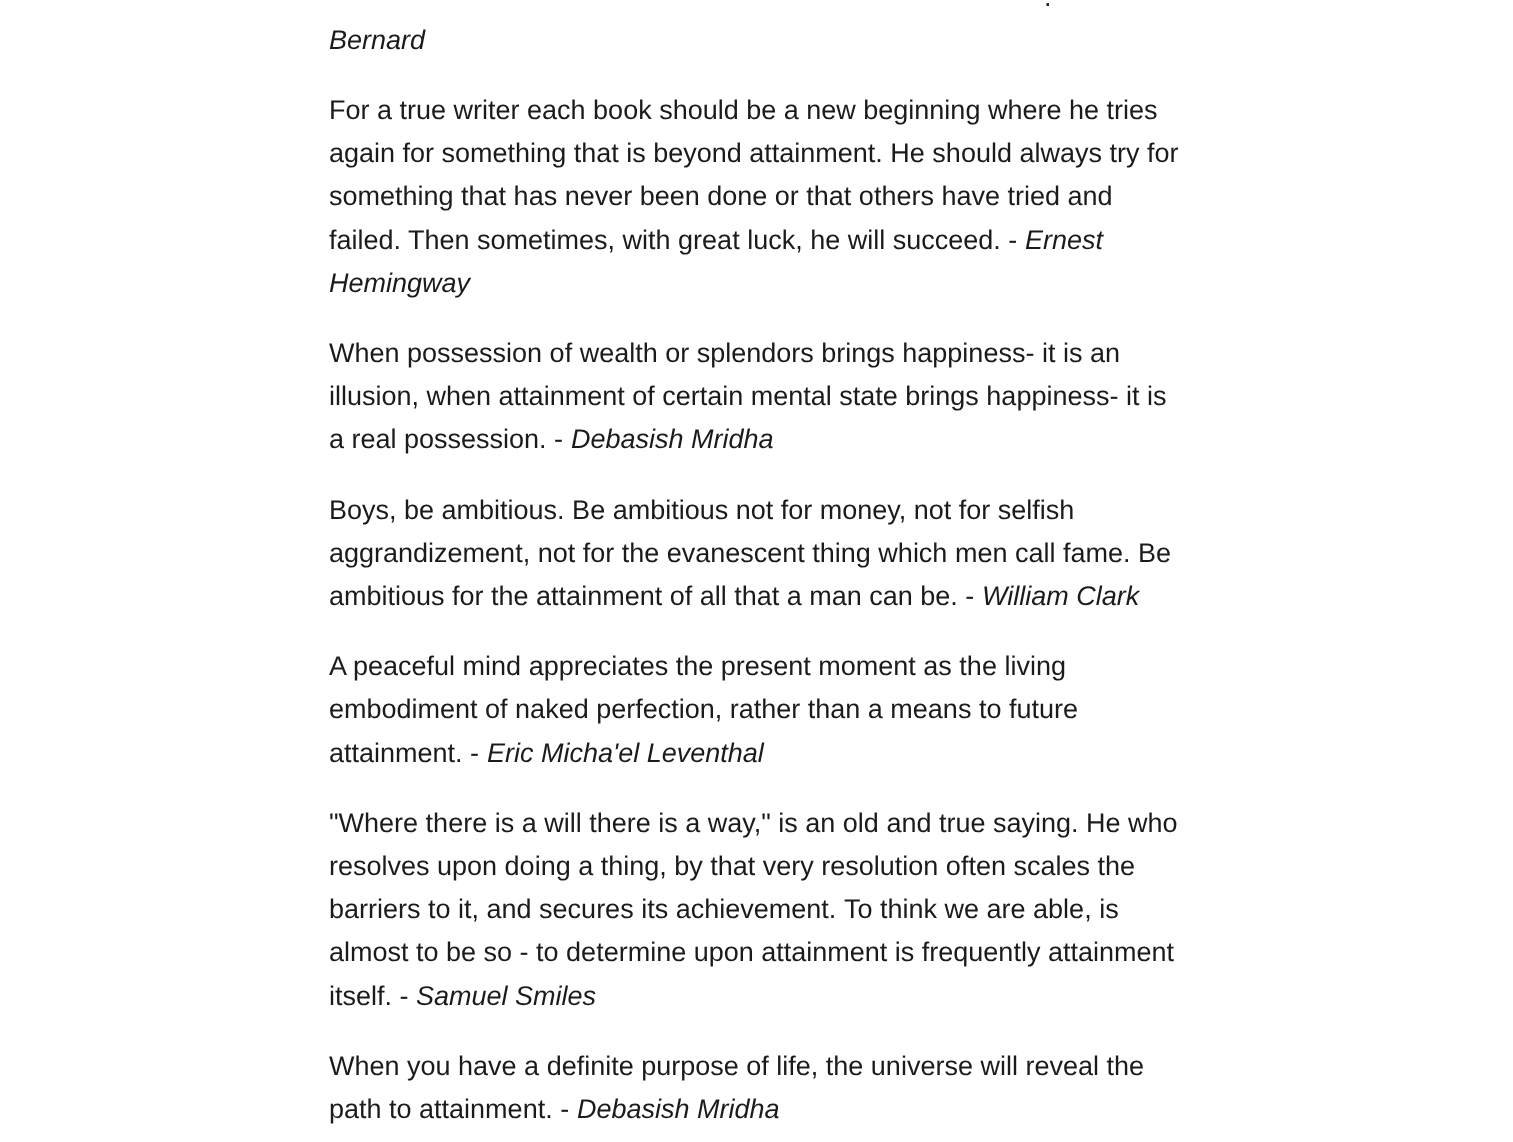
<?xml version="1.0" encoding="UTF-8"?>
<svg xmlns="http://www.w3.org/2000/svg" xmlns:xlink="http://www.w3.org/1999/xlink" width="1513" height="1142">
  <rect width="100%" height="100%" fill="#ffffff" />
  <text x="1044" y="6" style="font-family: Liberation Sans; font-size: 27px; fill: #1b1b1b">.</text>
  <text x="329" y="49" style="font-family: Liberation Sans; font-size: 27px; font-style: italic; fill: #1b1b1b">Bernard</text>
  <text x="329" y="119" style="font-family: Liberation Sans; font-size: 27px; fill: #1b1b1b">For a true writer each book should be a new beginning where he tries</text>
  <text x="329" y="162" style="font-family: Liberation Sans; font-size: 27px; fill: #1b1b1b">again for something that is beyond attainment. He should always try for</text>
  <text x="329" y="205" style="font-family: Liberation Sans; font-size: 27px; fill: #1b1b1b">something that has never been done or that others have tried and</text>
  <text x="329" y="249" style="font-family: Liberation Sans; font-size: 27px; fill: #1b1b1b">failed.</text>
  <text x="408" y="249" style="font-family: Liberation Sans; font-size: 27px; fill: #1b1b1b">Then sometimes, with great luck, he will succeed. -</text>
  <text x="1025" y="249" style="font-family: Liberation Sans; font-size: 27px; font-style: italic; fill: #1b1b1b">Ernest</text>
  <text x="329" y="292" style="font-family: Liberation Sans; font-size: 27px; font-style: italic; fill: #1b1b1b">Hemingway</text>
  <text x="329" y="362" style="font-family: Liberation Sans; font-size: 27px; fill: #1b1b1b">When possession of wealth or splendors brings happiness- it is an</text>
  <text x="329" y="405" style="font-family: Liberation Sans; font-size: 27px; fill: #1b1b1b">illusion, when attainment of certain mental state brings happiness- it is</text>
  <text x="329" y="448" style="font-family: Liberation Sans; font-size: 27px; fill: #1b1b1b">a real possession. -</text>
  <text x="571" y="448" style="font-family: Liberation Sans; font-size: 27px; font-style: italic; fill: #1b1b1b">Debasish Mridha</text>
  <text x="329" y="519" style="font-family: Liberation Sans; font-size: 27px; fill: #1b1b1b">Boys, be ambitious. Be ambitious not for money, not for selfish</text>
  <text x="329" y="562" style="font-family: Liberation Sans; font-size: 27px; fill: #1b1b1b">aggrandizement, not for the evanescent thing which men call fame. Be</text>
  <text x="329" y="605" style="font-family: Liberation Sans; font-size: 27px; fill: #1b1b1b">ambitious for the attainment of all that a man can be. -</text>
  <text x="982" y="605" style="font-family: Liberation Sans; font-size: 27px; font-style: italic; fill: #1b1b1b">William Clark</text>
  <text x="329" y="675" style="font-family: Liberation Sans; font-size: 27px; fill: #1b1b1b">A peaceful mind appreciates the present moment as the living</text>
  <text x="329" y="718" style="font-family: Liberation Sans; font-size: 27px; fill: #1b1b1b">embodiment of naked perfection, rather than a means to future</text>
  <text x="329" y="762" style="font-family: Liberation Sans; font-size: 27px; fill: #1b1b1b">attainment. -</text>
  <text x="487" y="762" style="font-family: Liberation Sans; font-size: 27px; font-style: italic; fill: #1b1b1b">Eric Micha'el Leventhal</text>
  <text x="329" y="832" style="font-family: Liberation Sans; font-size: 27px; fill: #1b1b1b">"Where there is a will there is a way," is an old and true saying. He who</text>
  <text x="329" y="875" style="font-family: Liberation Sans; font-size: 27px; fill: #1b1b1b">resolves upon doing a thing, by that very resolution often scales the</text>
  <text x="329" y="918" style="font-family: Liberation Sans; font-size: 27px; fill: #1b1b1b">barriers to it, and secures its achievement.</text>
  <text x="844" y="918" style="font-family: Liberation Sans; font-size: 27px; fill: #1b1b1b">To think we are able, is</text>
  <text x="329" y="961" style="font-family: Liberation Sans; font-size: 27px; fill: #1b1b1b">almost to be so - to determine upon attainment is frequently attainment</text>
  <text x="329" y="1005" style="font-family: Liberation Sans; font-size: 27px; fill: #1b1b1b">itself. -</text>
  <text x="416" y="1005" style="font-family: Liberation Sans; font-size: 27px; font-style: italic; fill: #1b1b1b">Samuel Smiles</text>
  <text x="329" y="1075" style="font-family: Liberation Sans; font-size: 27px; fill: #1b1b1b">When you have a definite purpose of life, the universe will reveal the</text>
  <text x="329" y="1118" style="font-family: Liberation Sans; font-size: 27px; fill: #1b1b1b">path to attainment. -</text>
  <text x="577" y="1118" style="font-family: Liberation Sans; font-size: 27px; font-style: italic; fill: #1b1b1b">Debasish Mridha</text>
</svg>
